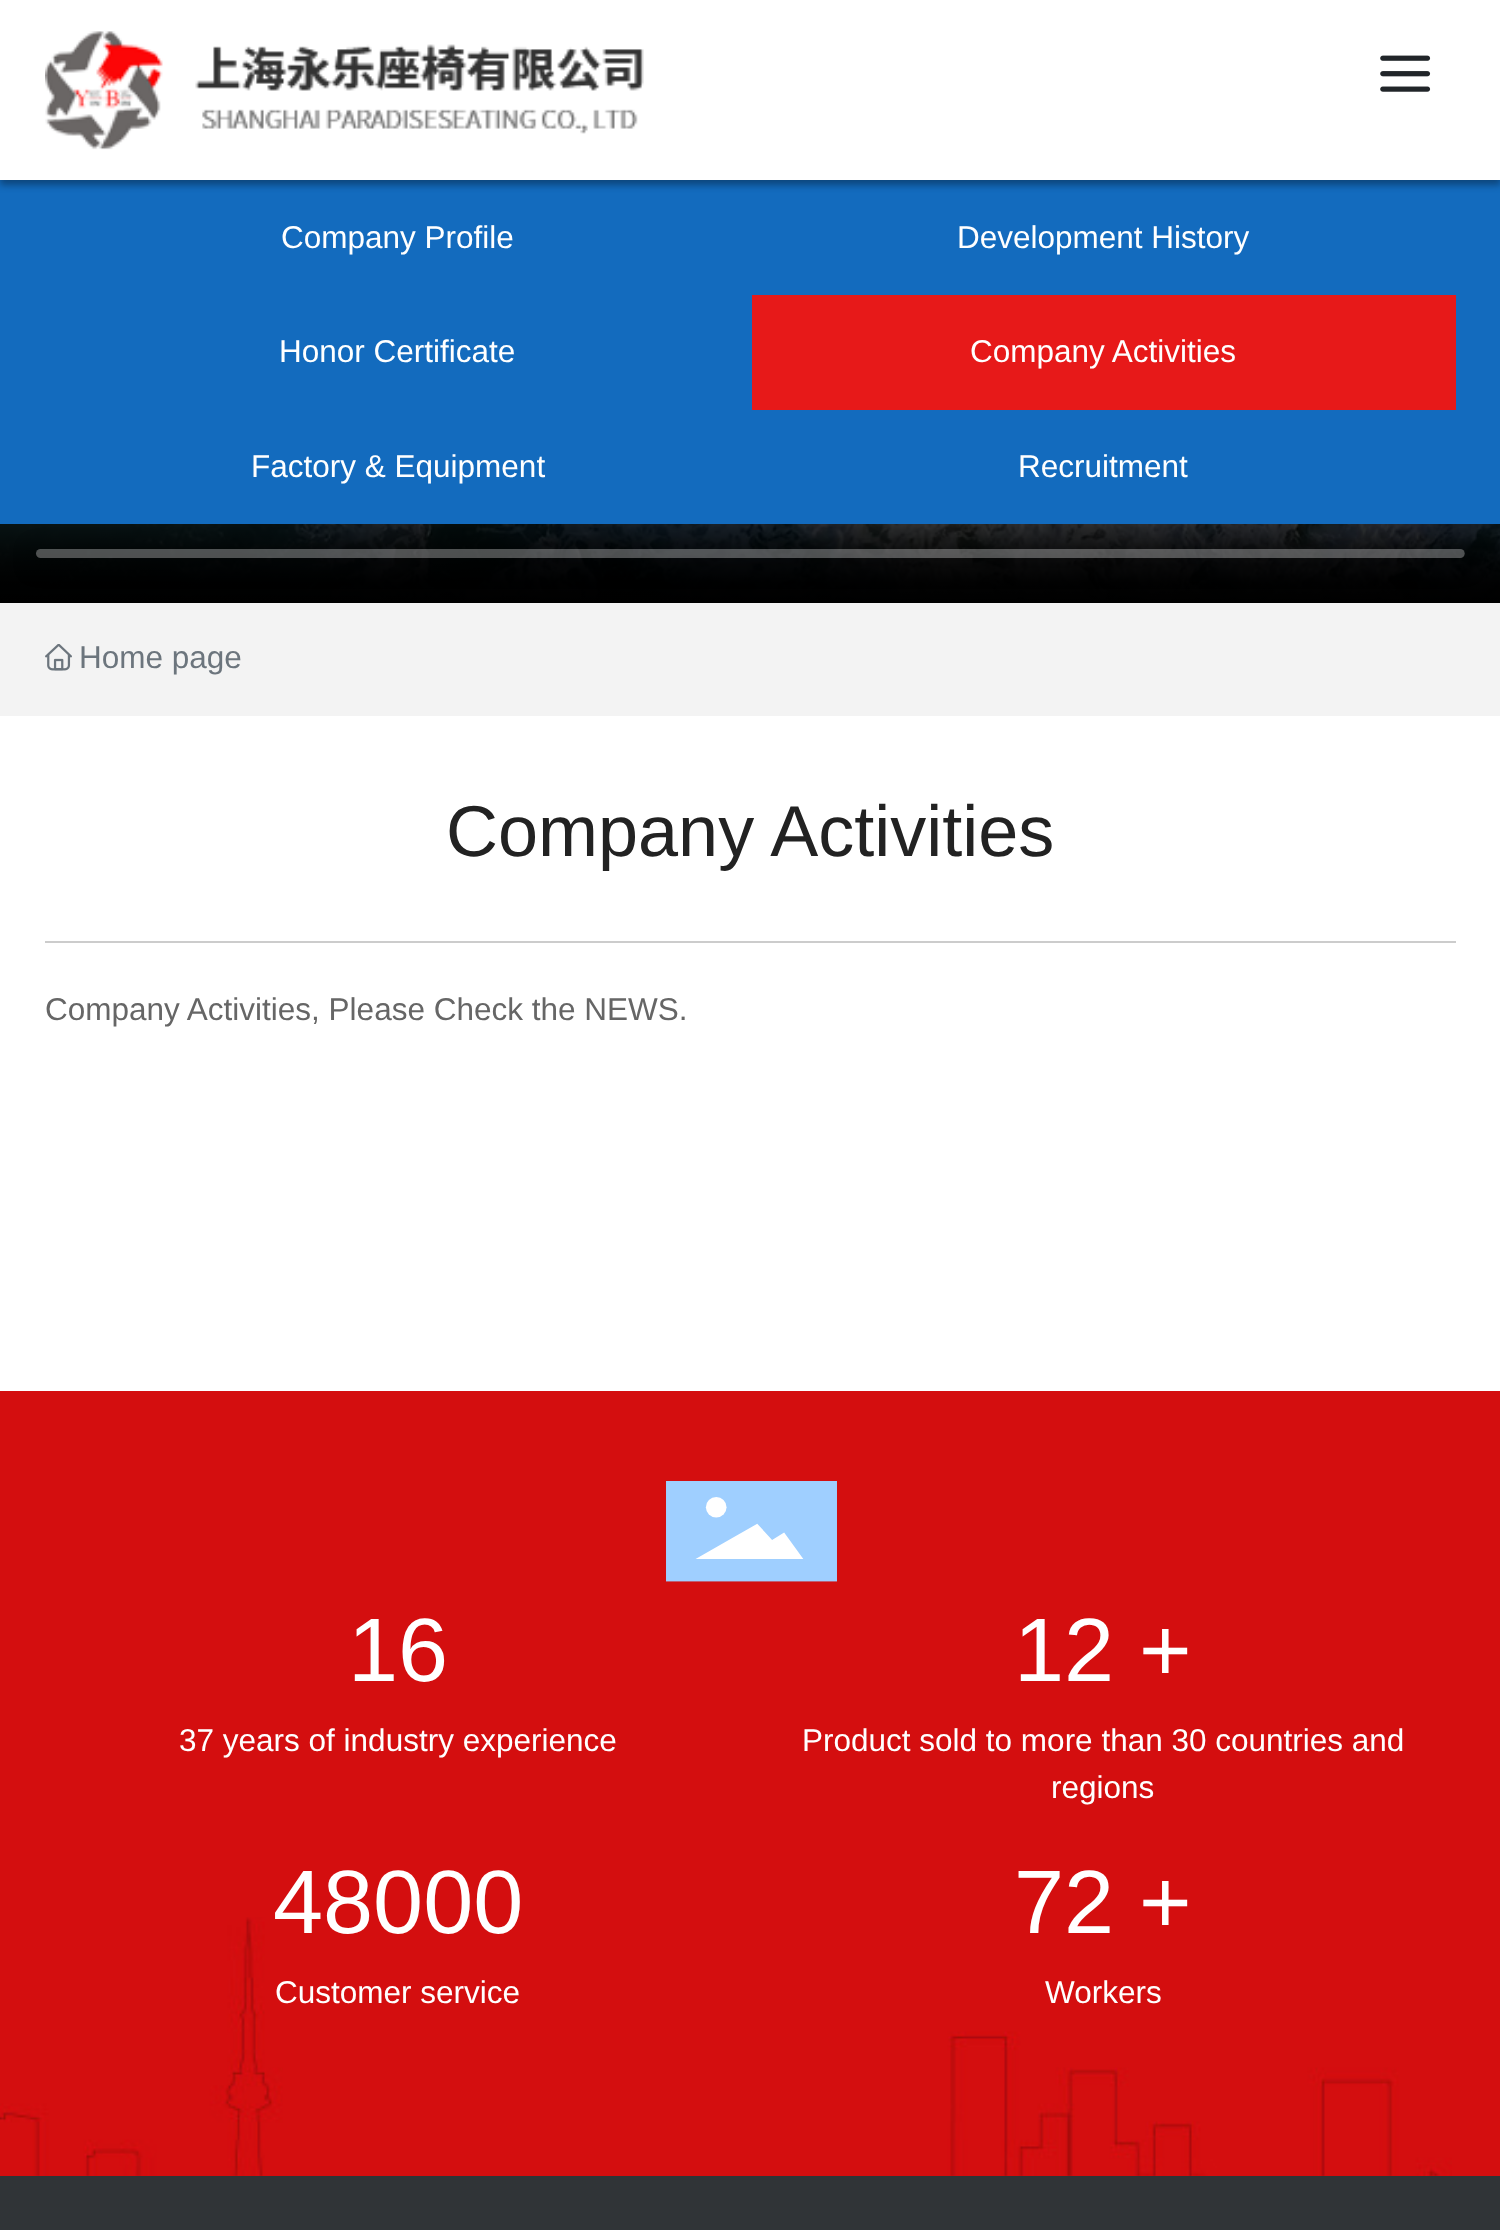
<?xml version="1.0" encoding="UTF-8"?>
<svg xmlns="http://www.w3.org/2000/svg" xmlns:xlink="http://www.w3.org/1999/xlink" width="1500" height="2230">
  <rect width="100%" height="100%" fill="#ffffff" />
  <rect y="180" width="1500" height="344" fill="#136bbe" />
  <rect y="5" width="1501" height="180" fill="#000000" fill-opacity="0.35" filter="blur(3.5px)" />
  <rect width="1500" height="180" fill="#ffffff" />
  <image x="45" y="31" width="599" height="119" xlink:href="image1.png" />
  <image x="1380" y="55" width="51" height="37" xlink:href="image2.png" />
  <rect x="752" y="295" width="704" height="115" fill="#e71919" />
  <image x="0" y="524" width="1500" height="79" xlink:href="image3.png" />
  <rect y="603" width="1500" height="113" fill="#f3f3f3" />
  <image x="45" y="644" width="27" height="27" xlink:href="image4.png" />
  <rect x="45" y="941" width="1411" height="2" fill="#cccccc" />
  <rect y="1391" width="1500" height="785" fill="#d40e0f" />
  <image x="0" y="1917" width="1452" height="259" xlink:href="image5.png" />
  <image x="666" y="1481" width="171" height="101" xlink:href="image6.png" />
  <rect y="2176" width="1500" height="54" fill="#303437" />
  <text x="281" y="248" style="font-family: Liberation Sans; font-size: 31.5px; fill: #ffffff">Company Profile</text>
  <text x="957" y="248" style="font-family: Liberation Sans; font-size: 31.5px; fill: #ffffff">Development History</text>
  <text x="279" y="362" style="font-family: Liberation Sans; font-size: 31.5px; fill: #ffffff">Honor Certificate</text>
  <text x="970" y="362" style="font-family: Liberation Sans; font-size: 31.5px; fill: #ffffff">Company Activities</text>
  <text x="251" y="477" style="font-family: Liberation Sans; font-size: 31.5px; fill: #ffffff">Factory &amp; Equipment</text>
  <text x="1018" y="477" style="font-family: Liberation Sans; font-size: 31.5px; fill: #ffffff">Recruitment</text>
  <text x="79" y="668" style="font-family: Liberation Sans; font-size: 31.5px; fill: #6c757d">Home page</text>
  <text x="446" y="856" style="font-family: Liberation Sans; font-size: 72px; fill: #222222">Company Activities</text>
  <text x="45" y="1020" style="font-family: Liberation Sans; font-size: 31.5px; fill: #666666">Company Activities, Please Check the NEWS.</text>
  <text x="348" y="1681" style="font-family: Liberation Sans; font-size: 90px; fill: #ffffff">16</text>
  <text x="179" y="1751" style="font-family: Liberation Sans; font-size: 31.5px; fill: #ffffff">37 years of industry experience</text>
  <text x="1014" y="1681" style="font-family: Liberation Sans; font-size: 90px; fill: #ffffff">12 +</text>
  <text x="802" y="1751" style="font-family: Liberation Sans; font-size: 31.5px; fill: #ffffff">Product sold to more than 30 countries and</text>
  <text x="1051" y="1798" style="font-family: Liberation Sans; font-size: 31.5px; fill: #ffffff">regions</text>
  <text x="273" y="1933" style="font-family: Liberation Sans; font-size: 90px; fill: #ffffff">48000</text>
  <text x="275" y="2003" style="font-family: Liberation Sans; font-size: 31.5px; fill: #ffffff">Customer service</text>
  <text x="1014" y="1933" style="font-family: Liberation Sans; font-size: 90px; fill: #ffffff">72 +</text>
  <text x="1045" y="2003" style="font-family: Liberation Sans; font-size: 31.5px; fill: #ffffff">Workers</text>
</svg>
